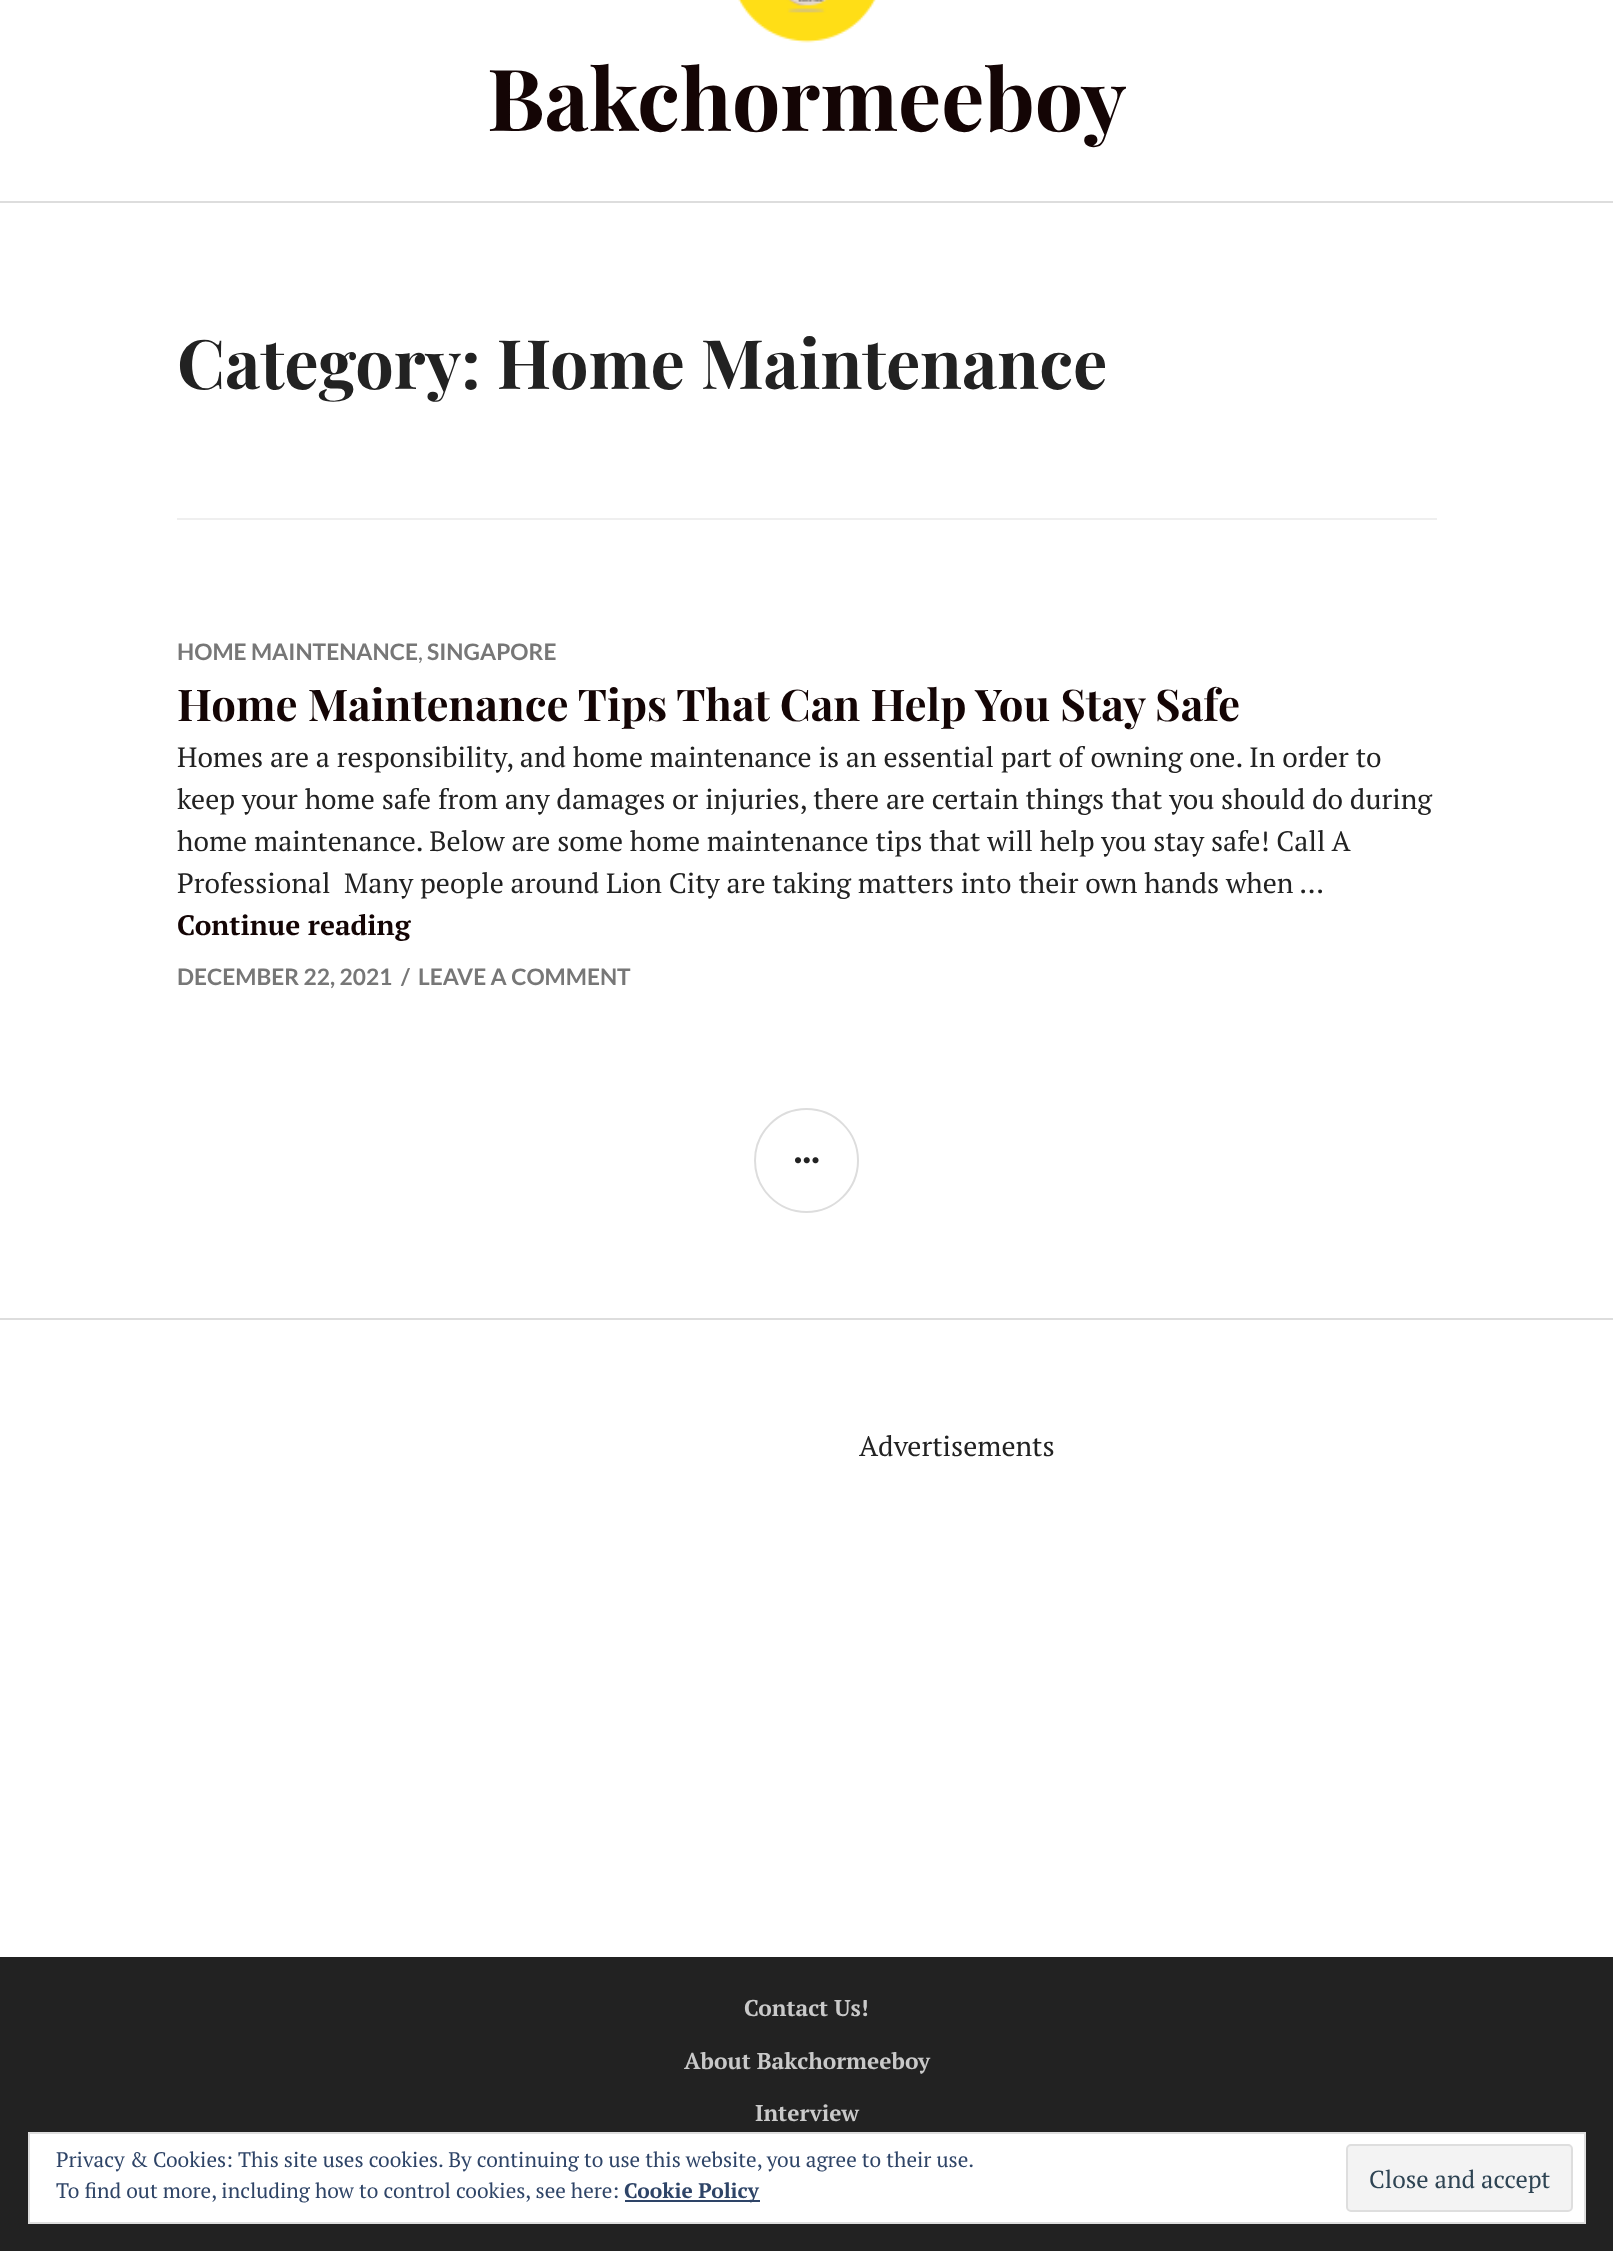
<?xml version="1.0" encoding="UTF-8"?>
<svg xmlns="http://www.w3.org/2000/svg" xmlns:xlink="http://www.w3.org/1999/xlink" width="1613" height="2251">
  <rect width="100%" height="100%" fill="#ffffff" />
  <rect y="201" width="1613" height="2" fill="#dddddd" />
  <image x="738" y="0" width="138" height="43" xlink:href="image1.png" />
  <rect x="177" y="518" width="1260" height="2" fill="#efefef" />
  <circle cx="806.5" cy="1160.5" r="51.5" fill="none" stroke="#dddddd" stroke-width="2" />
  <image x="795" y="1157" width="24" height="7" xlink:href="image2.png" />
  <rect y="1318" width="1613" height="2" fill="#dddddd" />
  <rect y="1957" width="1613" height="294" fill="#222222" />
  <rect x="29" y="2133" width="1556" height="90" fill="#ffffff" stroke="#dedede" stroke-width="2" />
  <rect x="625" y="2200" width="135" height="2" fill="#2e4467" />
  <rect x="1347" y="2145" width="225" height="66" rx="4" fill="#f3f3f3" stroke="#dedede" stroke-width="2" />
  <text x="487" y="131" style="font-family: Playfair Display; font-size: 85.75px; font-weight: bold; fill: #140505">Bakchormeeboy</text>
  <text x="177" y="389" style="font-family: Playfair Display; font-size: 68.25px; font-weight: bold; fill: #222222">Category: Home Maintenance</text>
  <text x="177" y="660" style="font-family: Lato; font-size: 22.75px; font-weight: bold; fill: #777777">HOME MAINTENANCE</text>
  <text x="418" y="660" style="font-family: Lato; font-size: 22.75px; fill: #777777">,</text>
  <text x="427" y="660" style="font-family: Lato; font-size: 22.75px; font-weight: bold; fill: #777777">SINGAPORE</text>
  <text x="177" y="721" style="font-family: Playfair Display; font-size: 43.75px; font-weight: bold; fill: #140505">Home Maintenance Tips That Can Help You Stay Safe</text>
  <text x="177" y="767" style="font-family: PT Serif; font-size: 28px; fill: #222222">Homes are a responsibility, and home maintenance is an essential part of owning one. In order to</text>
  <text x="177" y="809" style="font-family: PT Serif; font-size: 28px; fill: #222222">keep your home safe from any damages or injuries, there are certain things that you should do during</text>
  <text x="177" y="851" style="font-family: PT Serif; font-size: 28px; fill: #222222">home maintenance. Below are some home maintenance tips that will help you stay safe! Call A</text>
  <text x="177" y="893" style="font-family: PT Serif; font-size: 28px; fill: #222222" xml:space="preserve">Professional  Many people around Lion City are taking matters into their own hands when …</text>
  <text x="177" y="935" style="font-family: PT Serif; font-size: 28px; font-weight: bold; fill: #140505">Continue reading</text>
  <text x="177" y="985" style="font-family: Lato; font-size: 22.75px; font-weight: bold; fill: #777777">DECEMBER 22, 2021</text>
  <text x="401" y="985" style="font-family: Lato; font-size: 22.75px; font-weight: bold; fill: #777777">/</text>
  <text x="418" y="985" style="font-family: Lato; font-size: 22.75px; font-weight: bold; fill: #777777">LEAVE A COMMENT</text>
  <text x="859" y="1456" style="font-family: PT Serif; font-size: 28px; fill: #222222">Advertisements</text>
  <text x="744" y="2016" style="font-family: PT Serif; font-size: 22.75px; font-weight: bold; fill: #c9c9c9">Contact Us!</text>
  <text x="684" y="2069" style="font-family: PT Serif; font-size: 22.75px; font-weight: bold; fill: #c9c9c9">About Bakchormeeboy</text>
  <text x="755" y="2121" style="font-family: PT Serif; font-size: 22.75px; font-weight: bold; fill: #c9c9c9">Interview</text>
  <text x="56" y="2167" style="font-family: PT Serif; font-size: 21px; fill: #2e4467">Privacy &amp; Cookies: This site uses cookies. By continuing to use this website, you agree to their use.</text>
  <text x="56" y="2198" style="font-family: PT Serif; font-size: 21px; fill: #2e4467">To find out more, including how to control cookies, see here:</text>
  <text x="624" y="2198" style="font-family: PT Serif; font-size: 21px; font-weight: bold; fill: #2e4467">Cookie Policy</text>
  <text x="1369" y="2188" style="font-family: PT Serif; font-size: 24.5px; fill: #2e4453">Close and accept</text>
</svg>
